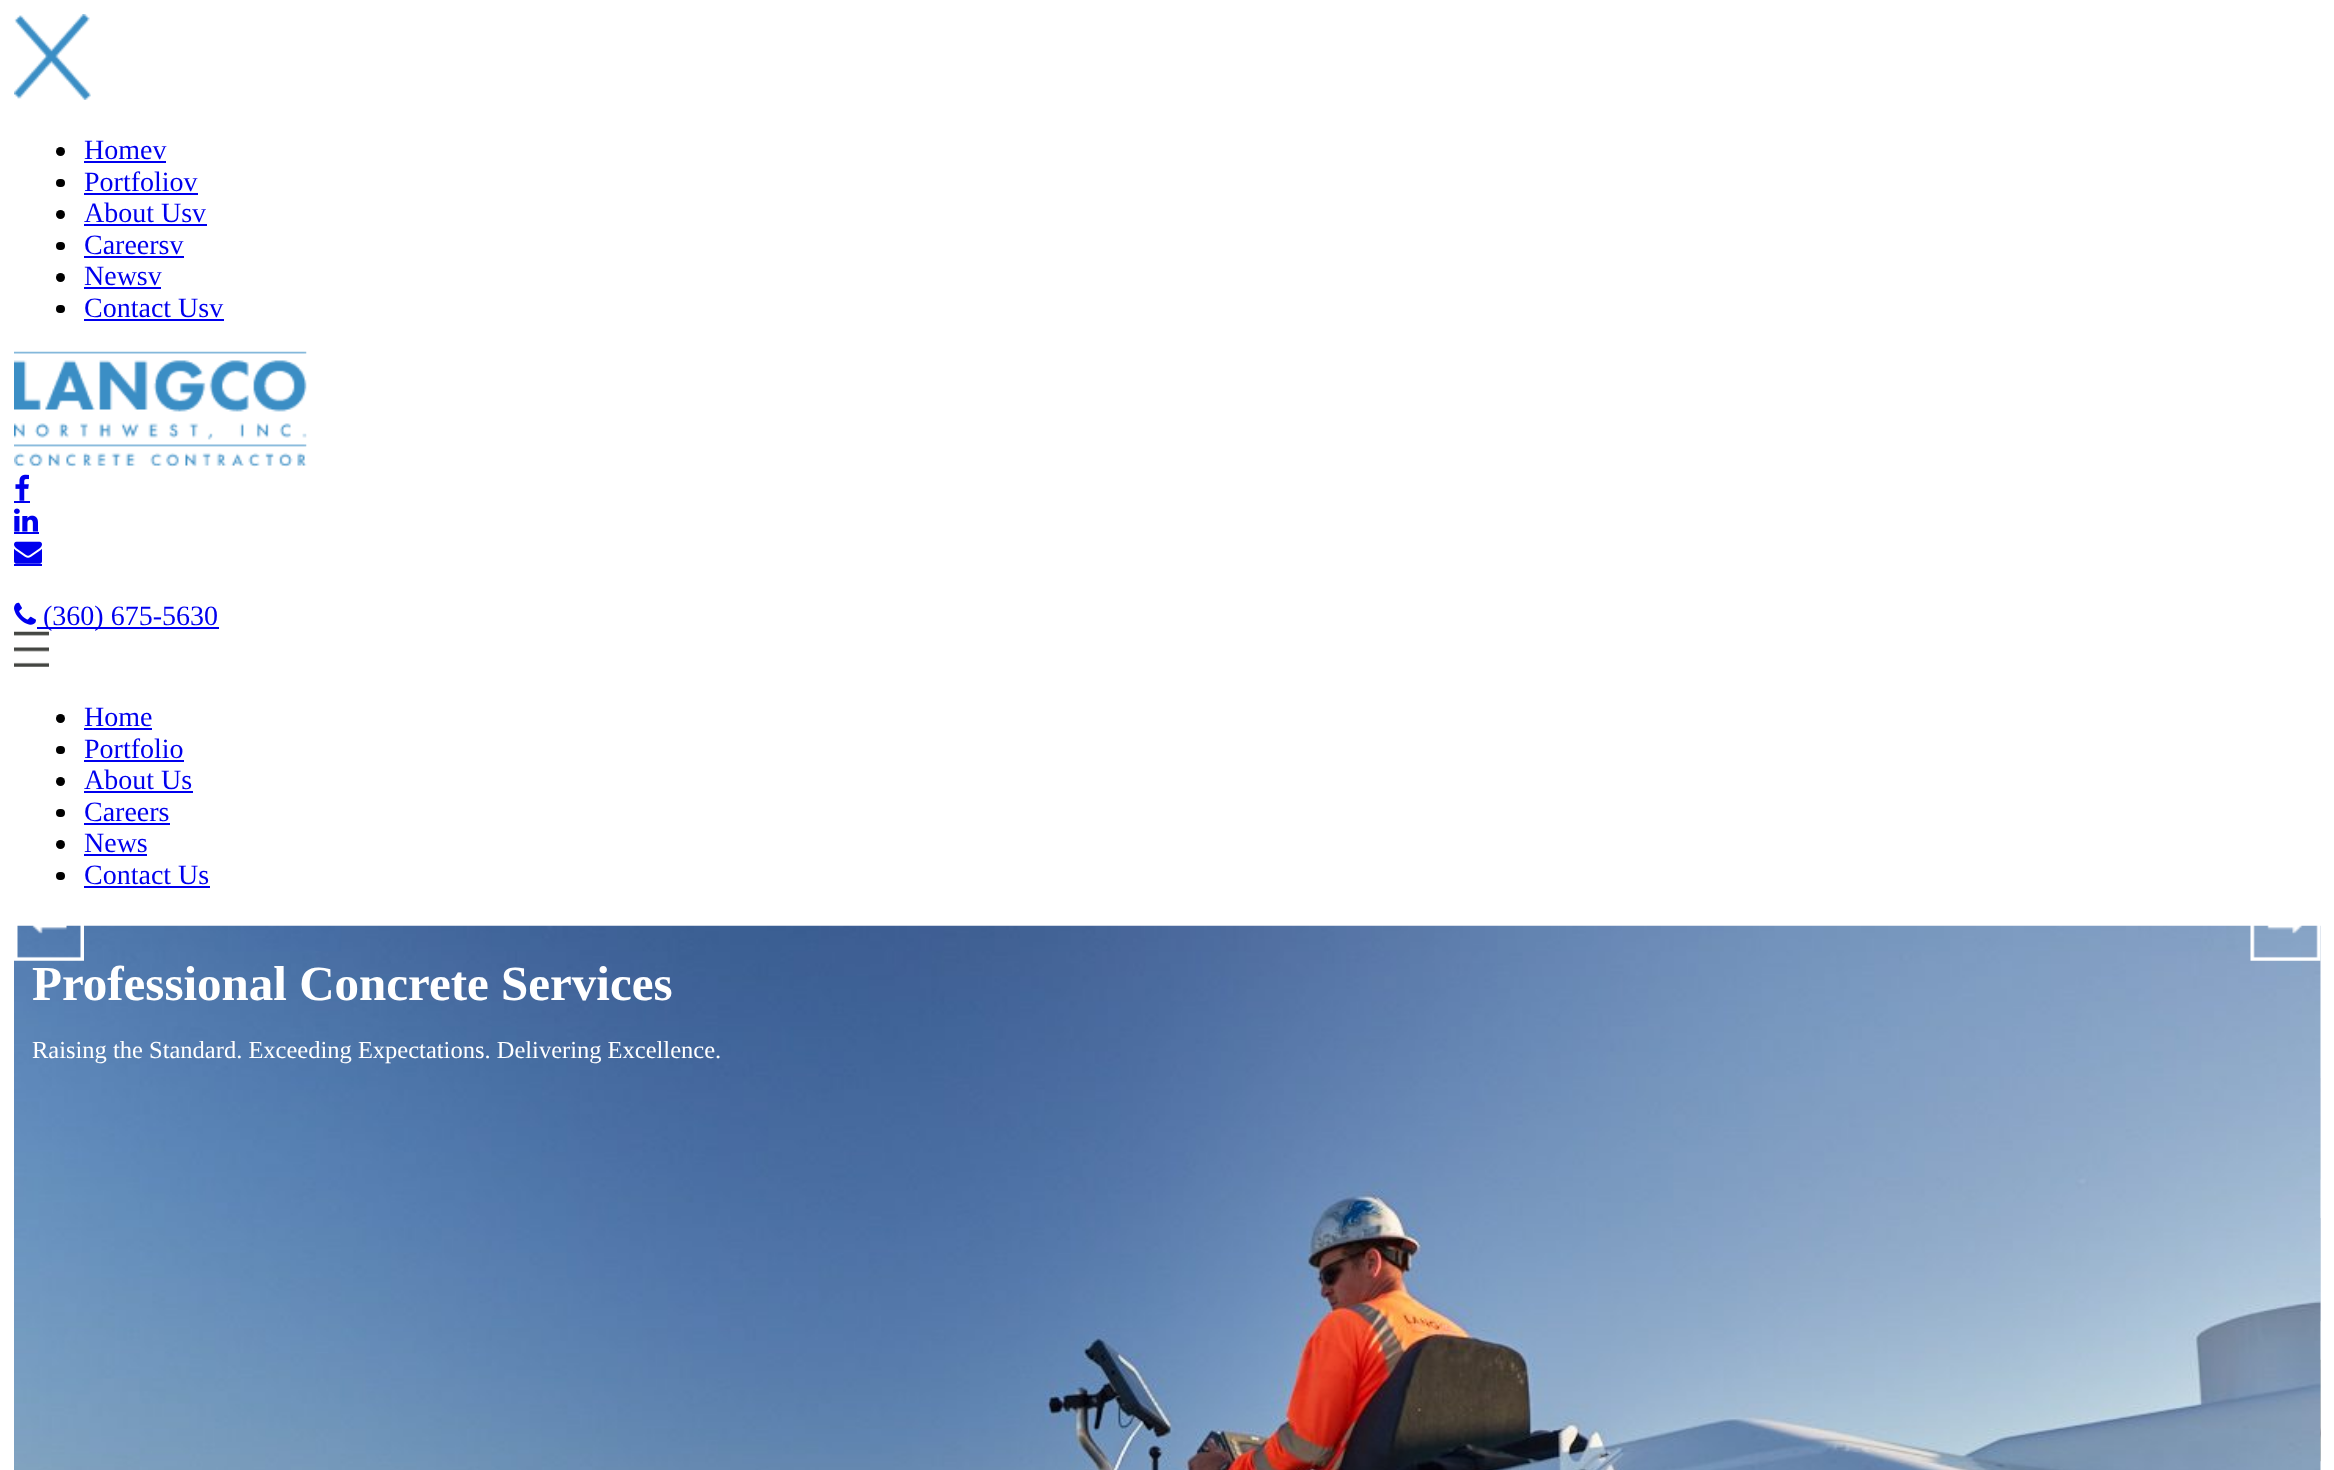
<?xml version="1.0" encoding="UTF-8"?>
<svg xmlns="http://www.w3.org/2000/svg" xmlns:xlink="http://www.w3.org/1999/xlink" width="2334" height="1470">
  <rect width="100%" height="100%" fill="#ffffff" />
  <image x="14" y="14" width="77" height="86" xlink:href="image1.png" />
  <circle cx="60.5" cy="151.5" r="4.5" fill="#000000" />
  <rect x="84" y="161" width="82" height="2" fill="#0000ee" />
  <rect x="56" y="179" width="9" height="8" rx="4" fill="#000000" />
  <rect x="84" y="193" width="114" height="2" fill="#0000ee" />
  <circle cx="60.5" cy="214.5" r="4.5" fill="#000000" />
  <rect x="84" y="224" width="123" height="2" fill="#0000ee" />
  <rect x="56" y="242" width="9" height="8" rx="4" fill="#000000" />
  <rect x="84" y="256" width="100" height="2" fill="#0000ee" />
  <circle cx="60.5" cy="277.5" r="4.5" fill="#000000" />
  <rect x="84" y="287" width="77" height="2" fill="#0000ee" />
  <rect x="56" y="305" width="9" height="8" rx="4" fill="#000000" />
  <rect x="84" y="319" width="140" height="2" fill="#0000ee" />
  <image x="14" y="351" width="293" height="116" xlink:href="image2.png" />
  <image x="15" y="474" width="14" height="27" xlink:href="image3.png" />
  <rect x="14" y="501" width="16" height="2" fill="#0000ee" />
  <image x="14" y="508" width="24" height="24" xlink:href="image4.png" />
  <rect x="14" y="532" width="25" height="2" fill="#0000ee" />
  <image x="14" y="541" width="28" height="23" xlink:href="image5.png" />
  <rect x="14" y="564" width="28" height="2" fill="#0000ee" />
  <image x="14" y="602" width="22" height="23" xlink:href="image6.png" />
  <rect x="37" y="627" width="182" height="2" fill="#0000ee" />
  <image x="14" y="631" width="35" height="36" xlink:href="image7.png" />
  <circle cx="60.5" cy="718.5" r="4.5" fill="#000000" />
  <rect x="84" y="728" width="68" height="2" fill="#0000ee" />
  <rect x="56" y="746" width="9" height="8" rx="4" fill="#000000" />
  <rect x="84" y="760" width="100" height="2" fill="#0000ee" />
  <circle cx="60.5" cy="781.5" r="4.5" fill="#000000" />
  <rect x="84" y="791" width="109" height="2" fill="#0000ee" />
  <rect x="56" y="809" width="9" height="8" rx="4" fill="#000000" />
  <rect x="84" y="823" width="86" height="2" fill="#0000ee" />
  <circle cx="60.5" cy="844.5" r="4.5" fill="#000000" />
  <rect x="84" y="854" width="63" height="2" fill="#0000ee" />
  <rect x="56" y="872" width="9" height="8" rx="4" fill="#000000" />
  <rect x="84" y="886" width="126" height="2" fill="#0000ee" />
  <image x="2320" y="1078" width="1" height="102" xlink:href="image11.png" />
  <image x="2320" y="1218" width="1" height="104" xlink:href="image12.png" />
  <image x="2320" y="1359" width="1" height="103" xlink:href="image13.png" />
  <image x="14" y="925" width="2307" height="545" xlink:href="image10.png" />
  <image x="14" y="925" width="70" height="36" xlink:href="image8.png" />
  <image x="2250" y="925" width="71" height="36" xlink:href="image9.png" />
  <text x="84" y="159" style="font-family: Liberation Serif; font-size: 28px; fill: #0000ee">Homev</text>
  <text x="84" y="191" style="font-family: Liberation Serif; font-size: 28px; fill: #0000ee">Portfoliov</text>
  <text x="84" y="222" style="font-family: Liberation Serif; font-size: 28px; fill: #0000ee">About Usv</text>
  <text x="84" y="254" style="font-family: Liberation Serif; font-size: 28px; fill: #0000ee">Careersv</text>
  <text x="84" y="285" style="font-family: Liberation Serif; font-size: 28px; fill: #0000ee">Newsv</text>
  <text x="84" y="317" style="font-family: Liberation Serif; font-size: 28px; fill: #0000ee">Contact Usv</text>
  <text x="43" y="625" style="font-family: Liberation Serif; font-size: 28px; fill: #0000ee">(360) 675-5630</text>
  <text x="84" y="726" style="font-family: Liberation Serif; font-size: 28px; fill: #0000ee">Home</text>
  <text x="84" y="758" style="font-family: Liberation Serif; font-size: 28px; fill: #0000ee">Portfolio</text>
  <text x="84" y="789" style="font-family: Liberation Serif; font-size: 28px; fill: #0000ee">About Us</text>
  <text x="84" y="821" style="font-family: Liberation Serif; font-size: 28px; fill: #0000ee">Careers</text>
  <text x="84" y="852" style="font-family: Liberation Serif; font-size: 28px; fill: #0000ee">News</text>
  <text x="84" y="884" style="font-family: Liberation Serif; font-size: 28px; fill: #0000ee">Contact Us</text>
  <text x="32" y="1000" style="font-family: Liberation Serif; font-size: 49px; font-weight: bold; fill: #ffffff">Professional Concrete Services</text>
  <text x="32" y="1058" style="font-family: Liberation Serif; font-size: 24.5px; fill: #ffffff">Raising the Standard. Exceeding Expectations. Delivering Excellence.</text>
</svg>
